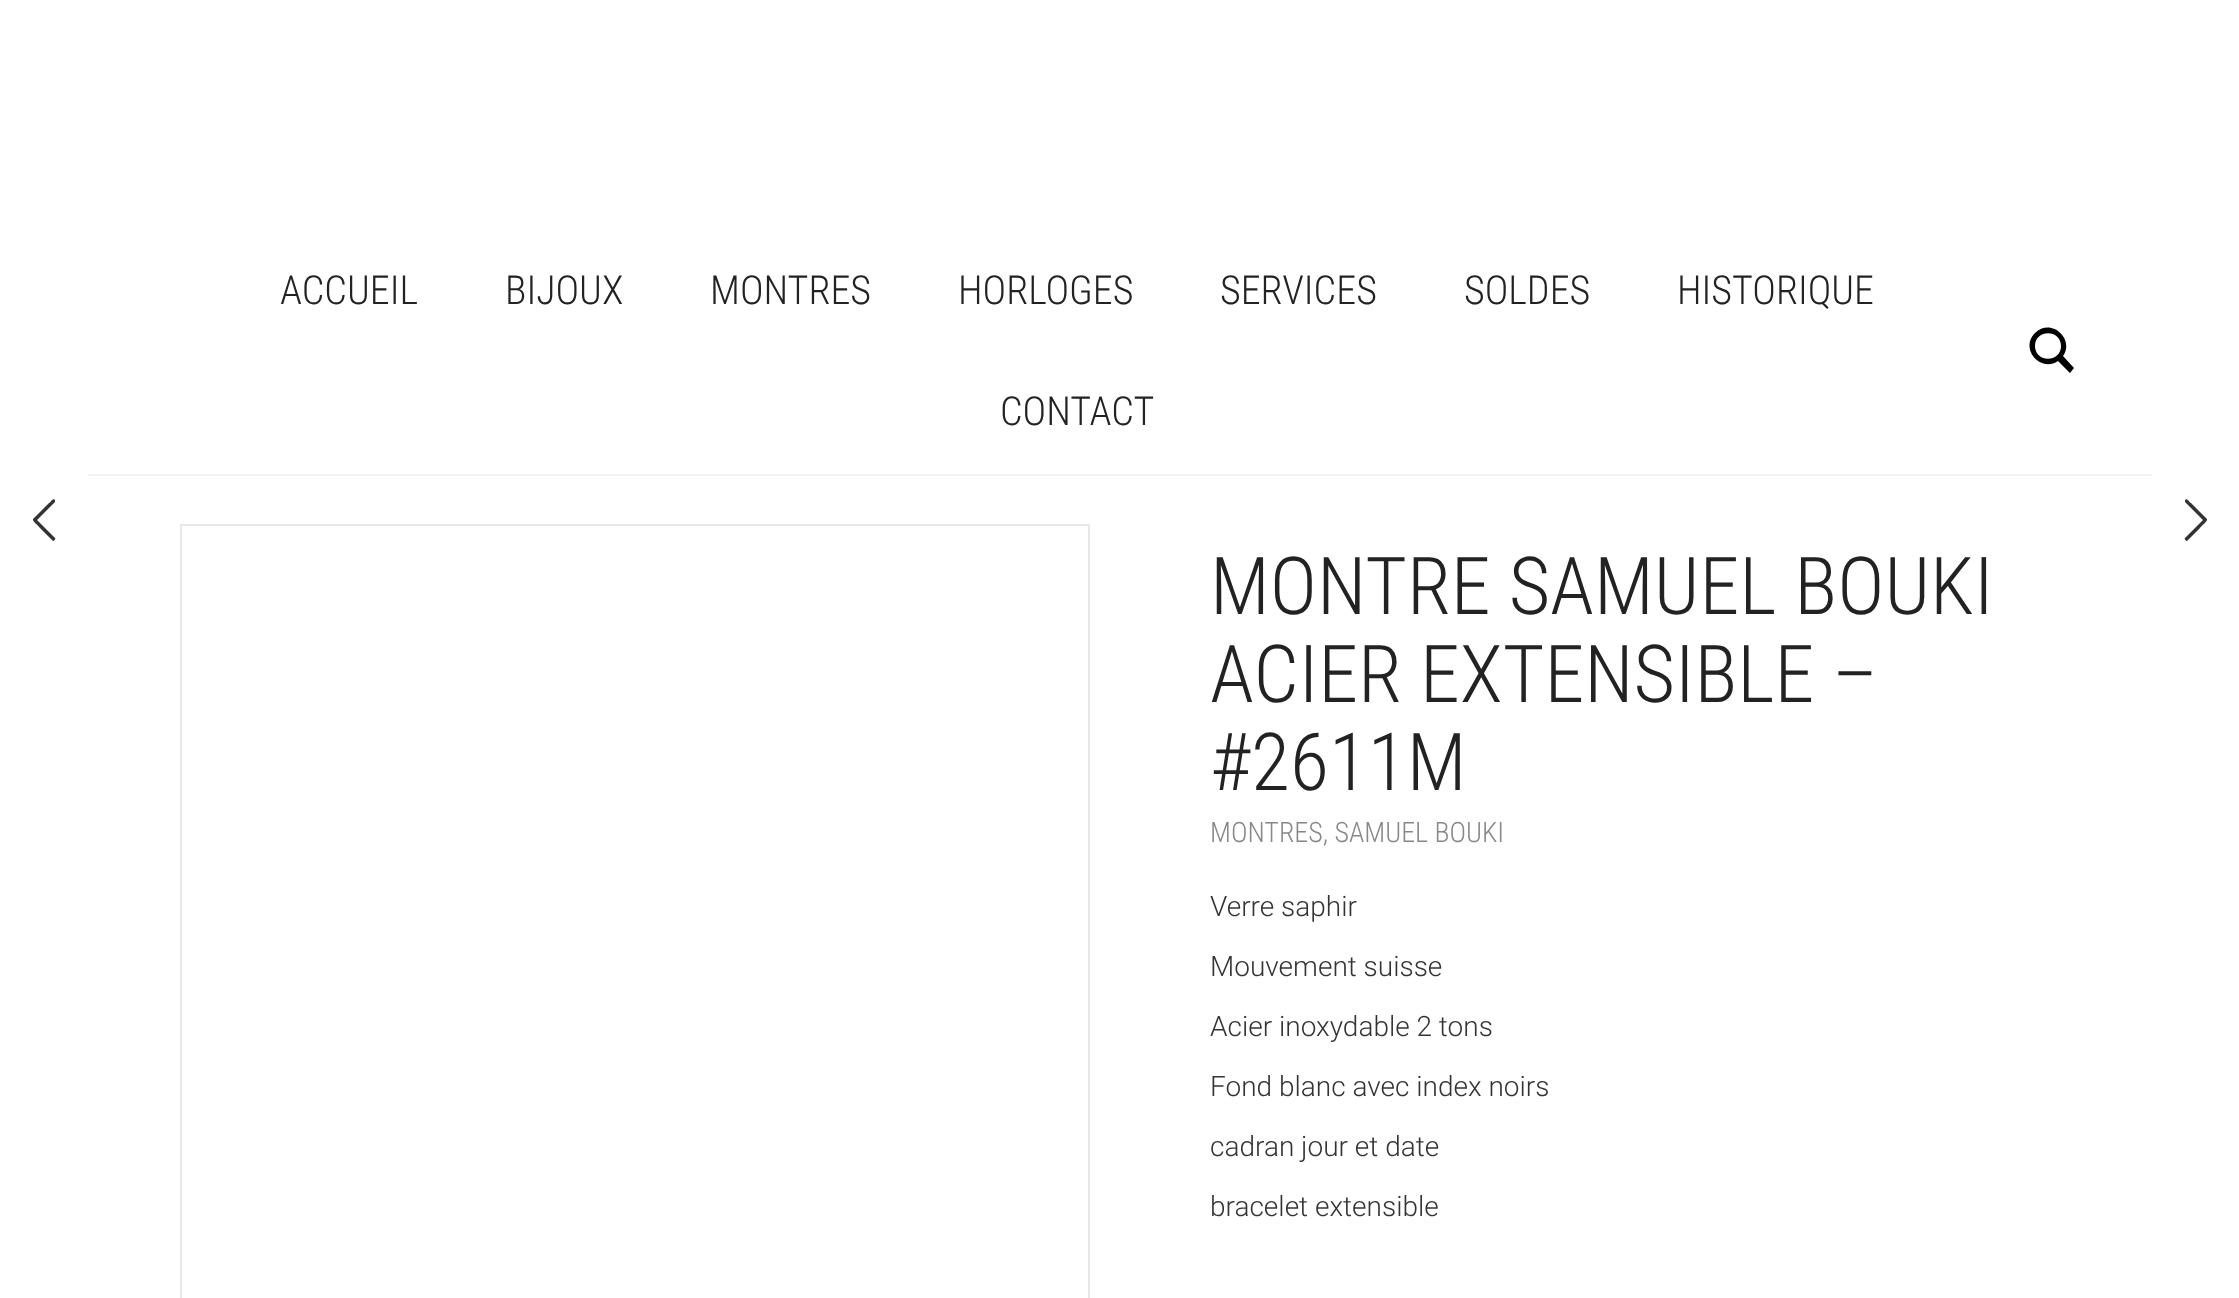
<?xml version="1.0" encoding="UTF-8"?>
<svg xmlns="http://www.w3.org/2000/svg" xmlns:xlink="http://www.w3.org/1999/xlink" width="2239" height="1298">
  <rect width="100%" height="100%" fill="#ffffff" />
  <rect x="88" y="474" width="2064" height="2" fill="#f2f2f2" />
  <path d="M 2074 368 l -11 -12 c 12 -17 -12 -39 -28 -23 c -16 16 6 40 23 28 l 12 12 z m -39 -22 c 0 -17 26 -17 26 0 c 0 17 -26 17 -26 0 z" fill="#000000" />
  <path d="M 55 538 c 1 1 -1 3 -2 3 l -13 -13 c -1 -2 -8 -7 -7 -9 l 16 -16 c 1 0 4 -6 6 -3 v 2 l -18 18 z" fill="#333333" />
  <path d="M 2185 538 c -1 1 1 3 2 3 l 13 -13 c 1 -2 8 -7 7 -9 l -16 -16 c -1 0 -4 -6 -6 -3 v 2 l 18 18 z" fill="#333333" />
  <rect x="181" y="525" width="908" height="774" fill="none" stroke="#e8e8e8" stroke-width="2" />
  <text x="280" y="304" style="font-family: Roboto Condensed; font-size: 40px; font-weight: 300; fill: #222222">ACCUEIL</text>
  <text x="505" y="304" style="font-family: Roboto Condensed; font-size: 40px; font-weight: 300; fill: #222222">BIJOUX</text>
  <text x="710" y="304" style="font-family: Roboto Condensed; font-size: 40px; font-weight: 300; fill: #222222">MONTRES</text>
  <text x="958" y="304" style="font-family: Roboto Condensed; font-size: 40px; font-weight: 300; fill: #222222">HORLOGES</text>
  <text x="1220" y="304" style="font-family: Roboto Condensed; font-size: 40px; font-weight: 300; fill: #222222">SERVICES</text>
  <text x="1464" y="304" style="font-family: Roboto Condensed; font-size: 40px; font-weight: 300; fill: #222222">SOLDES</text>
  <text x="1677" y="304" style="font-family: Roboto Condensed; font-size: 40px; font-weight: 300; fill: #222222">HISTORIQUE</text>
  <text x="1000" y="425" style="font-family: Roboto Condensed; font-size: 40px; font-weight: 300; fill: #222222">CONTACT</text>
  <text x="1210" y="614" style="font-family: Roboto Condensed; font-size: 80px; font-weight: 300; fill: #222222">MONTRE SAMUEL BOUKI</text>
  <text x="1210" y="702" style="font-family: Roboto Condensed; font-size: 80px; font-weight: 300; fill: #222222">ACIER EXTENSIBLE –</text>
  <text x="1210" y="790" style="font-family: Roboto Condensed; font-size: 80px; font-weight: 300; fill: #222222">#2611M</text>
  <text x="1210" y="842" style="font-family: Roboto Condensed; font-size: 28px; font-weight: 300; fill: #888888">MONTRES, SAMUEL BOUKI</text>
  <text x="1210" y="916" style="font-family: Roboto; font-size: 28px; font-weight: 300; fill: #333333">Verre saphir</text>
  <text x="1210" y="976" style="font-family: Roboto; font-size: 28px; font-weight: 300; fill: #333333">Mouvement suisse</text>
  <text x="1210" y="1036" style="font-family: Roboto; font-size: 28px; font-weight: 300; fill: #333333">Acier inoxydable 2 tons</text>
  <text x="1210" y="1096" style="font-family: Roboto; font-size: 28px; font-weight: 300; fill: #333333">Fond blanc avec index noirs</text>
  <text x="1210" y="1156" style="font-family: Roboto; font-size: 28px; font-weight: 300; fill: #333333">cadran jour et date</text>
  <text x="1210" y="1216" style="font-family: Roboto; font-size: 28px; font-weight: 300; fill: #333333">bracelet extensible</text>
</svg>
